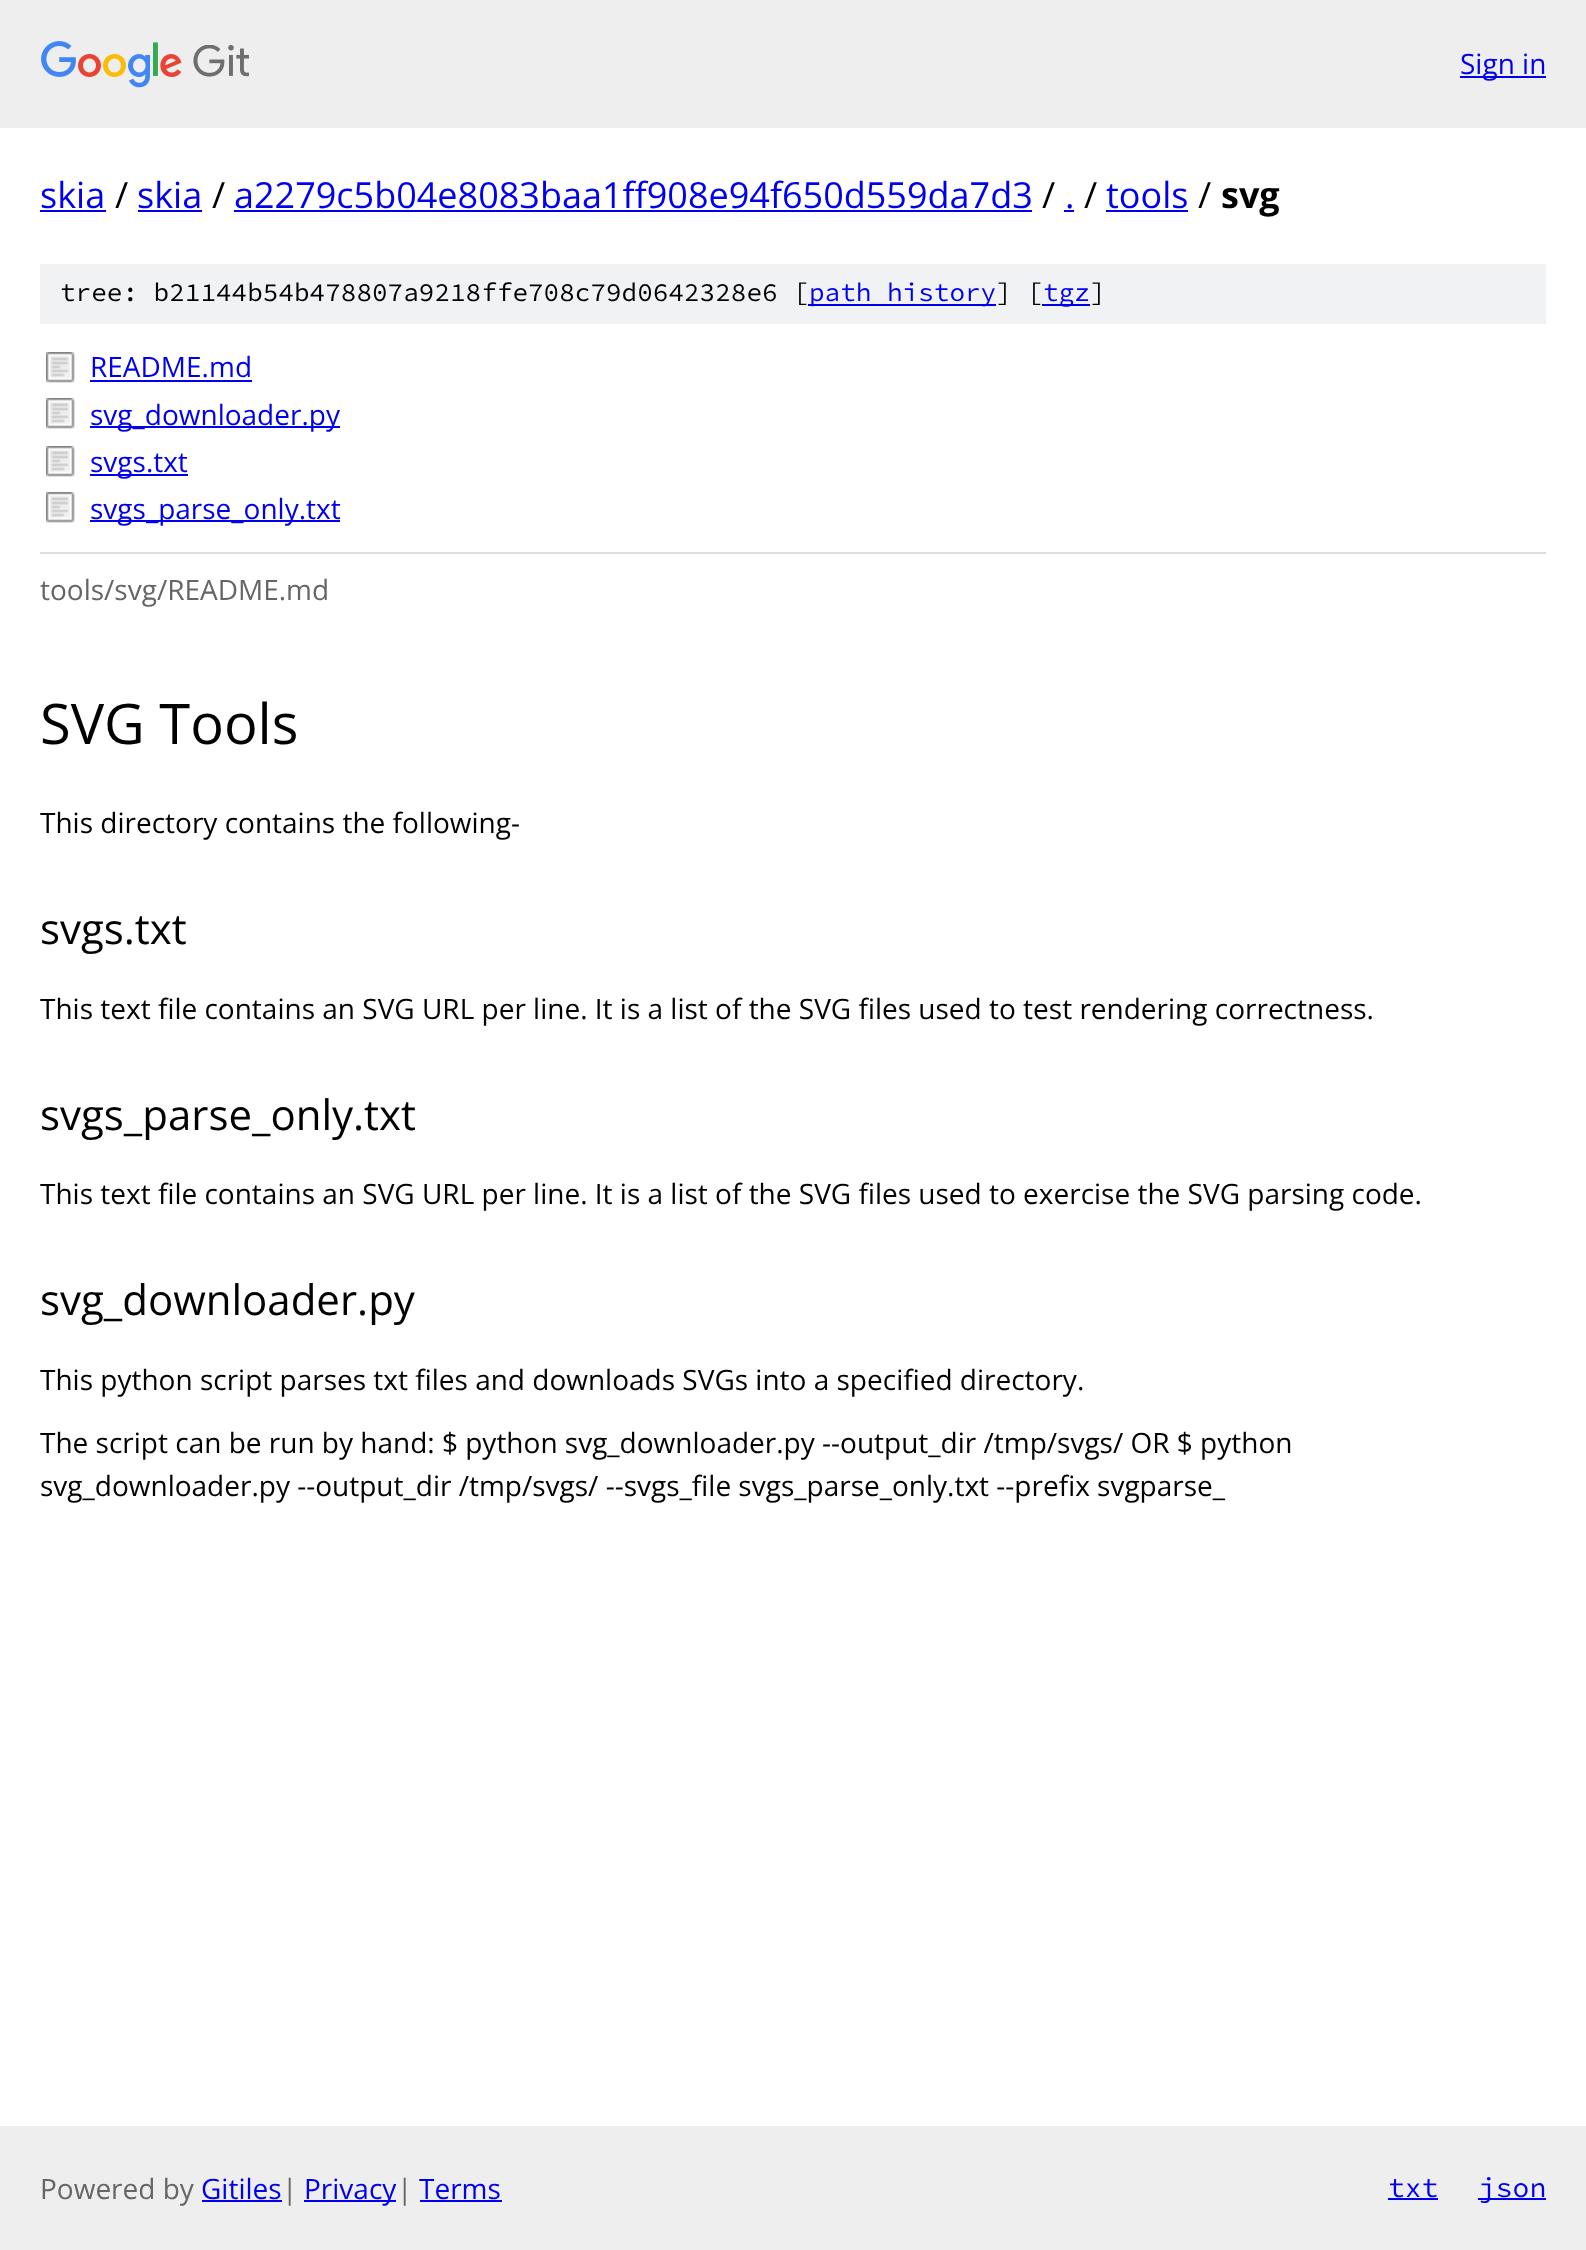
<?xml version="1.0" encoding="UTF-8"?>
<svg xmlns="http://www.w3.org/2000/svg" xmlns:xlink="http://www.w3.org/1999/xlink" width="1586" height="2250">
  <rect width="100%" height="100%" fill="#ffffff" />
  <rect width="1586" height="128" fill="#eeeeee" />
  <image x="41" y="41" width="208" height="47" xlink:href="image1.png" />
  <rect x="1460" y="76" width="86" height="2" fill="#0000ee" />
  <rect x="40" y="210" width="66" height="2" fill="#0000ee" />
  <rect x="138" y="210" width="64" height="2" fill="#0000ee" />
  <rect x="234" y="210" width="798" height="2" fill="#0000ee" />
  <rect x="1064" y="210" width="10" height="2" fill="#0000ee" />
  <rect x="1106" y="210" width="82" height="2" fill="#0000ee" />
  <rect x="40" y="264" width="1506" height="60" fill="#f1f2f3" />
  <rect x="808" y="304" width="188" height="2" fill="#0000ee" />
  <rect x="1042" y="304" width="48" height="2" fill="#0000ee" />
  <image x="46" y="352" width="29" height="31" xlink:href="image2.png" />
  <rect x="90" y="380" width="162" height="2" fill="#0000ee" />
  <image x="46" y="398" width="29" height="31" xlink:href="image2.png" />
  <rect x="90" y="426" width="250" height="2" fill="#0000ee" />
  <image x="46" y="446" width="29" height="31" xlink:href="image2.png" />
  <rect x="90" y="474" width="98" height="2" fill="#0000ee" />
  <image x="46" y="492" width="29" height="31" xlink:href="image2.png" />
  <rect x="90" y="520" width="250" height="2" fill="#0000ee" />
  <rect x="40" y="552" width="1506" height="2" fill="#dddddd" />
  <rect y="2126" width="1586" height="124" fill="#eeeeee" />
  <rect x="202" y="2200" width="80" height="2" fill="#0000ee" />
  <rect x="304" y="2200" width="92" height="2" fill="#0000ee" />
  <rect x="420" y="2200" width="82" height="2" fill="#0000ee" />
  <rect x="1388" y="2198" width="50" height="2" fill="#0000ee" />
  <rect x="1478" y="2198" width="68" height="2" fill="#0000ee" />
  <text x="1460" y="74" style="font-family: Open Sans; font-size: 28px; fill: #0000ee">Sign in</text>
  <text x="40" y="208" style="font-family: Open Sans; font-size: 36px; fill: #0000ee">skia</text>
  <text x="115" y="208" style="font-family: Open Sans; font-size: 36px; fill: #000000">/</text>
  <text x="137" y="208" style="font-family: Open Sans; font-size: 36px; fill: #0000ee">skia</text>
  <text x="212" y="208" style="font-family: Open Sans; font-size: 36px; fill: #000000">/</text>
  <text x="234" y="208" style="font-family: Open Sans; font-size: 36px; fill: #0000ee">a2279c5b04e8083baa1ff908e94f650d559da7d3</text>
  <text x="1042" y="208" style="font-family: Open Sans; font-size: 36px; fill: #000000">/</text>
  <text x="1065" y="208" style="font-family: Open Sans; font-size: 36px; fill: #0000ee">.</text>
  <text x="1084" y="208" style="font-family: Open Sans; font-size: 36px; fill: #000000">/</text>
  <text x="1106" y="208" style="font-family: Open Sans; font-size: 36px; fill: #0000ee">tools</text>
  <text x="1198" y="208" style="font-family: Open Sans; font-size: 36px; fill: #000000">/</text>
  <text x="1221" y="208" style="font-family: Open Sans; font-size: 36px; font-weight: bold; fill: #000000">svg</text>
  <text x="60" y="301" style="font-family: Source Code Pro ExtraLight; font-size: 26px; font-weight: 200; fill: #000000">tree: b21144b54b478807a9218ffe708c79d0642328e6 [</text>
  <text x="809" y="301" style="font-family: Source Code Pro ExtraLight; font-size: 26px; font-weight: 200; fill: #0000ee">path history</text>
  <text x="996" y="301" style="font-family: Source Code Pro ExtraLight; font-size: 26px; font-weight: 200; fill: #000000">] [</text>
  <text x="1043" y="301" style="font-family: Source Code Pro ExtraLight; font-size: 26px; font-weight: 200; fill: #0000ee">tgz</text>
  <text x="1090" y="301" style="font-family: Source Code Pro ExtraLight; font-size: 26px; font-weight: 200; fill: #000000">]</text>
  <text x="90" y="377" style="font-family: Open Sans; font-size: 28px; fill: #0000ee">README.md</text>
  <text x="90" y="425" style="font-family: Open Sans; font-size: 28px; fill: #0000ee">svg_downloader.py</text>
  <text x="90" y="472" style="font-family: Open Sans; font-size: 28px; fill: #0000ee">svgs.txt</text>
  <text x="90" y="519" style="font-family: Open Sans; font-size: 28px; fill: #0000ee">svgs_parse_only.txt</text>
  <text x="40" y="600" style="font-family: Open Sans; font-size: 28px; fill: #666666">tools/svg/README.md</text>
  <text x="40" y="744" style="font-family: Open Sans; font-size: 56px; fill: #000000">SVG Tools</text>
  <text x="40" y="833" style="font-family: Open Sans; font-size: 28px; fill: #000000">This directory contains the following-</text>
  <text x="40" y="944" style="font-family: Open Sans; font-size: 42px; fill: #000000">svgs.txt</text>
  <text x="40" y="1019" style="font-family: Open Sans; font-size: 28px; fill: #000000">This text file contains an SVG URL per line. It is a list of the SVG files used to test rendering correctness.</text>
  <text x="40" y="1130" style="font-family: Open Sans; font-size: 42px; fill: #000000">svgs_parse_only.txt</text>
  <text x="40" y="1204" style="font-family: Open Sans; font-size: 28px; fill: #000000">This text file contains an SVG URL per line. It is a list of the SVG files used to exercise the SVG parsing code.</text>
  <text x="40" y="1315" style="font-family: Open Sans; font-size: 42px; fill: #000000">svg_downloader.py</text>
  <text x="40" y="1390" style="font-family: Open Sans; font-size: 28px; fill: #000000">This python script parses txt files and downloads SVGs into a specified directory.</text>
  <text x="40" y="1453" style="font-family: Open Sans; font-size: 28px; fill: #000000">The script can be run by hand: $ python svg_downloader.py --output_dir /tmp/svgs/ OR $ python</text>
  <text x="40" y="1496" style="font-family: Open Sans; font-size: 28px; fill: #000000">svg_downloader.py --output_dir /tmp/svgs/ --svgs_file svgs_parse_only.txt --prefix svgparse_</text>
  <text x="40" y="2199" style="font-family: Open Sans; font-size: 28px; fill: #666666">Powered by</text>
  <text x="201" y="2199" style="font-family: Open Sans; font-size: 28px; fill: #0000ee">Gitiles</text>
  <text x="282" y="2199" style="font-family: Open Sans; font-size: 28px; fill: #666666">|</text>
  <text x="304" y="2199" style="font-family: Open Sans; font-size: 28px; fill: #0000ee">Privacy</text>
  <text x="397" y="2199" style="font-family: Open Sans; font-size: 28px; fill: #666666">|</text>
  <text x="419" y="2199" style="font-family: Open Sans; font-size: 28px; fill: #0000ee">Terms</text>
  <text x="1388" y="2197" style="font-family: Source Code Pro ExtraLight; font-size: 28px; font-weight: 200; fill: #0000ee">txt</text>
  <text x="1479" y="2197" style="font-family: Source Code Pro ExtraLight; font-size: 28px; font-weight: 200; fill: #0000ee">json</text>
</svg>
